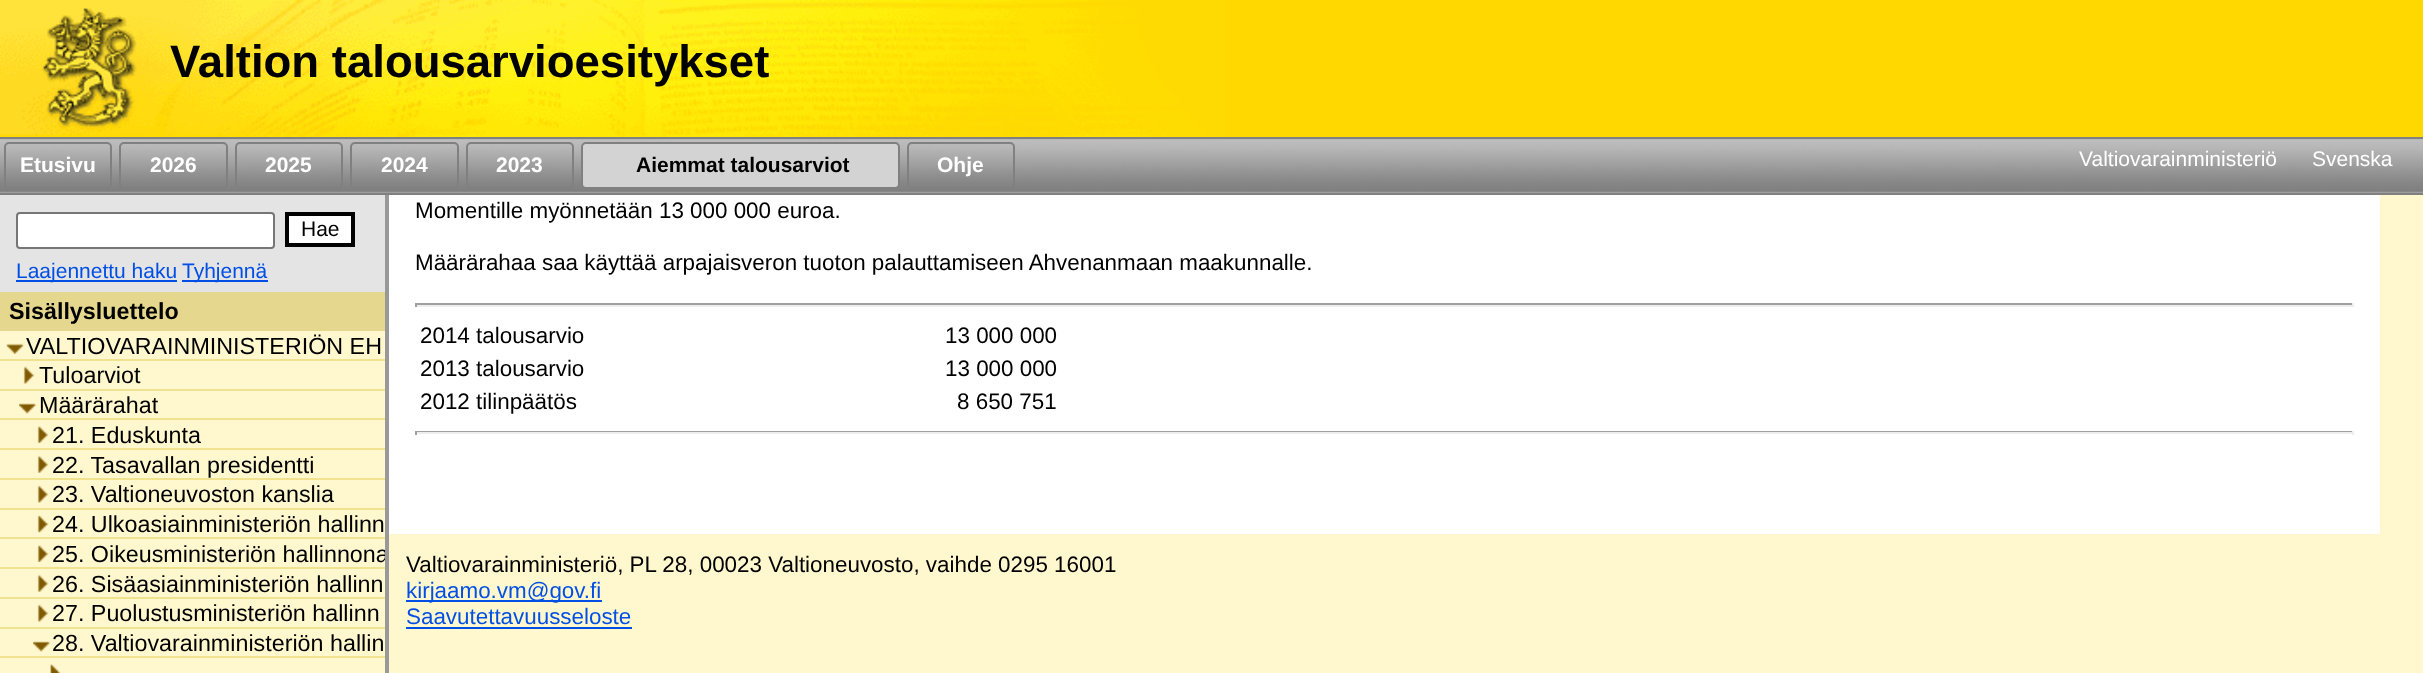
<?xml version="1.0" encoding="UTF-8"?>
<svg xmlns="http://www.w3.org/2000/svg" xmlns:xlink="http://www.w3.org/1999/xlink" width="2423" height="673">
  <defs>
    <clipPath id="clip1"><rect y="292" width="385" height="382" /></clipPath>
  </defs>
  <rect width="100%" height="100%" fill="#fff8ce" />
  <image x="0" y="0" width="1225" height="137" xlink:href="image1.png" />
  <rect x="1225" width="1198" height="137" fill="#ffd800" />
  <image x="0" y="139" width="2423" height="54" xlink:href="image2.png" />
  <rect y="137" width="2423" height="2" fill="#808080" />
  <rect x="385" y="193" width="4" height="480" fill="#999999" />
  <rect y="193" width="2423" height="2" fill="#808080" />
  <rect x="5" y="143" width="106" height="45" rx="4" fill="none" stroke="#808080" stroke-width="2" />
  <rect x="120" y="143" width="107" height="45" rx="4" fill="none" stroke="#808080" stroke-width="2" />
  <rect x="236" y="143" width="106" height="45" rx="4" fill="none" stroke="#808080" stroke-width="2" />
  <rect x="351" y="143" width="107" height="45" rx="4" fill="none" stroke="#808080" stroke-width="2" />
  <rect x="467" y="143" width="106" height="45" rx="4" fill="none" stroke="#808080" stroke-width="2" />
  <rect x="582" y="143" width="317" height="45" rx="4" fill="#d3d3d3" stroke="#808080" stroke-width="2" />
  <rect x="908" y="143" width="106" height="45" rx="4" fill="none" stroke="#808080" stroke-width="2" />
  <rect y="195" width="385" height="97" fill="#e4e4e4" />
  <rect x="17" y="213" width="257" height="35" rx="3" fill="#ffffff" stroke="#767676" stroke-width="2" />
  <rect x="287" y="214" width="66" height="31" fill="#fefefe" stroke="#000000" stroke-width="4" />
  <rect x="16" y="280" width="161" height="2" fill="#014fe5" />
  <rect x="182" y="280" width="86" height="2" fill="#014fe5" />
  <rect y="292" width="385" height="39" fill="#e5d88e" />
  <rect y="359" width="385" height="2" fill="#f0e28f" />
  <image x="6" y="343" width="18" height="11" xlink:href="image3.png" />
  <rect y="389" width="385" height="2" fill="#f0e28f" />
  <image x="23" y="366" width="12" height="18" xlink:href="image4.png" />
  <rect y="418" width="385" height="2" fill="#f0e28f" />
  <image x="19" y="403" width="18" height="11" xlink:href="image5.png" />
  <rect y="448" width="385" height="2" fill="#f0e28f" />
  <image x="37" y="426" width="12" height="17" xlink:href="image6.png" />
  <rect y="478" width="385" height="2" fill="#f0e28f" />
  <image x="37" y="455" width="12" height="18" xlink:href="image7.png" />
  <rect y="508" width="385" height="2" fill="#f0e28f" />
  <image x="37" y="485" width="12" height="18" xlink:href="image4.png" />
  <rect y="537" width="385" height="2" fill="#f0e28f" />
  <image x="37" y="515" width="12" height="18" xlink:href="image8.png" />
  <rect y="567" width="385" height="2" fill="#f0e28f" />
  <image x="37" y="545" width="12" height="17" xlink:href="image9.png" />
  <rect y="597" width="385" height="2" fill="#f0e28f" />
  <image x="37" y="574" width="12" height="18" xlink:href="image7.png" />
  <rect y="627" width="385" height="2" fill="#f0e28f" />
  <image x="37" y="604" width="12" height="18" xlink:href="image4.png" />
  <rect y="656" width="385" height="2" fill="#f0e28f" />
  <image x="33" y="641" width="18" height="11" xlink:href="image5.png" />
  <image x="50" y="664" width="11" height="9" xlink:href="image10.png" />
  <rect x="389" y="195" width="1991" height="339" fill="#ffffff" />
  <rect x="415" y="303" width="1939" height="2" fill="#9f9f9f" />
  <rect x="2352" y="303" width="2" height="4" fill="#eeeeee" />
  <rect x="415" y="305" width="1939" height="2" fill="#eeeeee" />
  <rect x="415" y="303" width="2" height="4" fill="#9f9f9f" />
  <rect x="415" y="431" width="1939" height="1" fill="#9f9f9f" />
  <rect x="2352" y="431" width="2" height="4" fill="#eeeeee" />
  <rect x="415" y="432" width="1939" height="2" fill="#eeeeee" />
  <rect x="415" y="431" width="2" height="4" fill="#9f9f9f" />
  <rect x="406" y="600" width="196" height="2" fill="#014fe5" />
  <rect x="406" y="627" width="226" height="2" fill="#014fe5" />
  <text x="170" y="77" style="font-family: Liberation Sans; font-size: 45.5px; font-weight: bold; fill: #000000">Valtion talousarvioesitykset</text>
  <text x="20" y="172" style="font-family: Liberation Sans; font-size: 21px; font-weight: bold; fill: #ffffff">Etusivu</text>
  <text x="150" y="172" style="font-family: Liberation Sans; font-size: 21px; font-weight: bold; fill: #ffffff">2026</text>
  <text x="265" y="172" style="font-family: Liberation Sans; font-size: 21px; font-weight: bold; fill: #ffffff">2025</text>
  <text x="381" y="172" style="font-family: Liberation Sans; font-size: 21px; font-weight: bold; fill: #ffffff">2024</text>
  <text x="496" y="172" style="font-family: Liberation Sans; font-size: 21px; font-weight: bold; fill: #ffffff">2023</text>
  <text x="636" y="172" style="font-family: Liberation Sans; font-size: 21px; font-weight: bold; fill: #000000">Aiemmat talousarviot</text>
  <text x="937" y="172" style="font-family: Liberation Sans; font-size: 21px; font-weight: bold; fill: #ffffff">Ohje</text>
  <text x="2079" y="166" style="font-family: Liberation Sans; font-size: 21px; fill: #ffffff">Valtiovarainministeriö</text>
  <text x="2312" y="166" style="font-family: Liberation Sans; font-size: 21px; fill: #ffffff">Svenska</text>
  <text x="301" y="236" style="font-family: Liberation Sans; font-size: 21px; fill: #000000">Hae</text>
  <text x="16" y="278" style="font-family: Liberation Sans; font-size: 21px; fill: #014fe5">Laajennettu haku</text>
  <text x="182" y="278" style="font-family: Liberation Sans; font-size: 21px; fill: #014fe5">Tyhjennä</text>
  <text x="9" y="319" style="font-family: Liberation Sans; font-size: 23.3px; font-weight: bold; fill: #000000">Sisällysluettelo</text>
  <text x="26" y="354" style="font-family: Liberation Sans; font-size: 23.3px; fill: #000000">VALTIOVARAINMINISTERIÖN EH</text>
  <text x="39" y="383" style="font-family: Liberation Sans; font-size: 23.3px; fill: #000000">Tuloarviot</text>
  <text x="39" y="413" style="font-family: Liberation Sans; font-size: 23.3px; fill: #000000">Määrärahat</text>
  <text x="52" y="443" style="font-family: Liberation Sans; font-size: 23.3px; fill: #000000">21. Eduskunta</text>
  <text x="52" y="473" style="font-family: Liberation Sans; font-size: 23.3px; fill: #000000">22. Tasavallan presidentti</text>
  <text x="52" y="502" style="font-family: Liberation Sans; font-size: 23.3px; fill: #000000">23. Valtioneuvoston kanslia</text>
  <text x="52" y="532" style="font-family: Liberation Sans; font-size: 23.3px; fill: #000000">24. Ulkoasiainministeriön hallinn</text>
  <g clip-path="url(#clip1)">
    <text x="52" y="562" style="font-family: Liberation Sans; font-size: 23.3px; fill: #000000">25. Oikeusministeriön hallinnona</text>
  </g>
  <text x="52" y="592" style="font-family: Liberation Sans; font-size: 23.3px; fill: #000000">26. Sisäasiainministeriön hallinn</text>
  <text x="52" y="621" style="font-family: Liberation Sans; font-size: 23.3px; fill: #000000">27. Puolustusministeriön hallinn</text>
  <text x="52" y="651" style="font-family: Liberation Sans; font-size: 23.3px; fill: #000000">28. Valtiovarainministeriön hallin</text>
  <text x="415" y="218" style="font-family: Liberation Sans; font-size: 22.4px; fill: #000000">Momentille myönnetään 13 000 000 euroa.</text>
  <text x="415" y="270" style="font-family: Liberation Sans; font-size: 22.4px; fill: #000000">Määrärahaa saa käyttää arpajaisveron tuoton palauttamiseen Ahvenanmaan maakunnalle.</text>
  <text x="420" y="343" style="font-family: Liberation Sans; font-size: 22.4px; fill: #000000">2014 talousarvio</text>
  <text x="945" y="343" style="font-family: Liberation Sans; font-size: 22.4px; fill: #000000">13 000 000</text>
  <text x="420" y="376" style="font-family: Liberation Sans; font-size: 22.4px; fill: #000000">2013 talousarvio</text>
  <text x="945" y="376" style="font-family: Liberation Sans; font-size: 22.4px; fill: #000000">13 000 000</text>
  <text x="420" y="409" style="font-family: Liberation Sans; font-size: 22.4px; fill: #000000">2012 tilinpäätös</text>
  <text x="957" y="409" style="font-family: Liberation Sans; font-size: 22.4px; fill: #000000">8 650 751</text>
  <text x="406" y="572" style="font-family: Liberation Sans; font-size: 22.4px; fill: #000000">Valtiovarainministeriö, PL 28, 00023 Valtioneuvosto, vaihde 0295 16001</text>
  <text x="406" y="598" style="font-family: Liberation Sans; font-size: 22.4px; fill: #014fe5">kirjaamo.vm@gov.fi</text>
  <text x="406" y="624" style="font-family: Liberation Sans; font-size: 22.4px; fill: #014fe5">Saavutettavuusseloste</text>
</svg>
